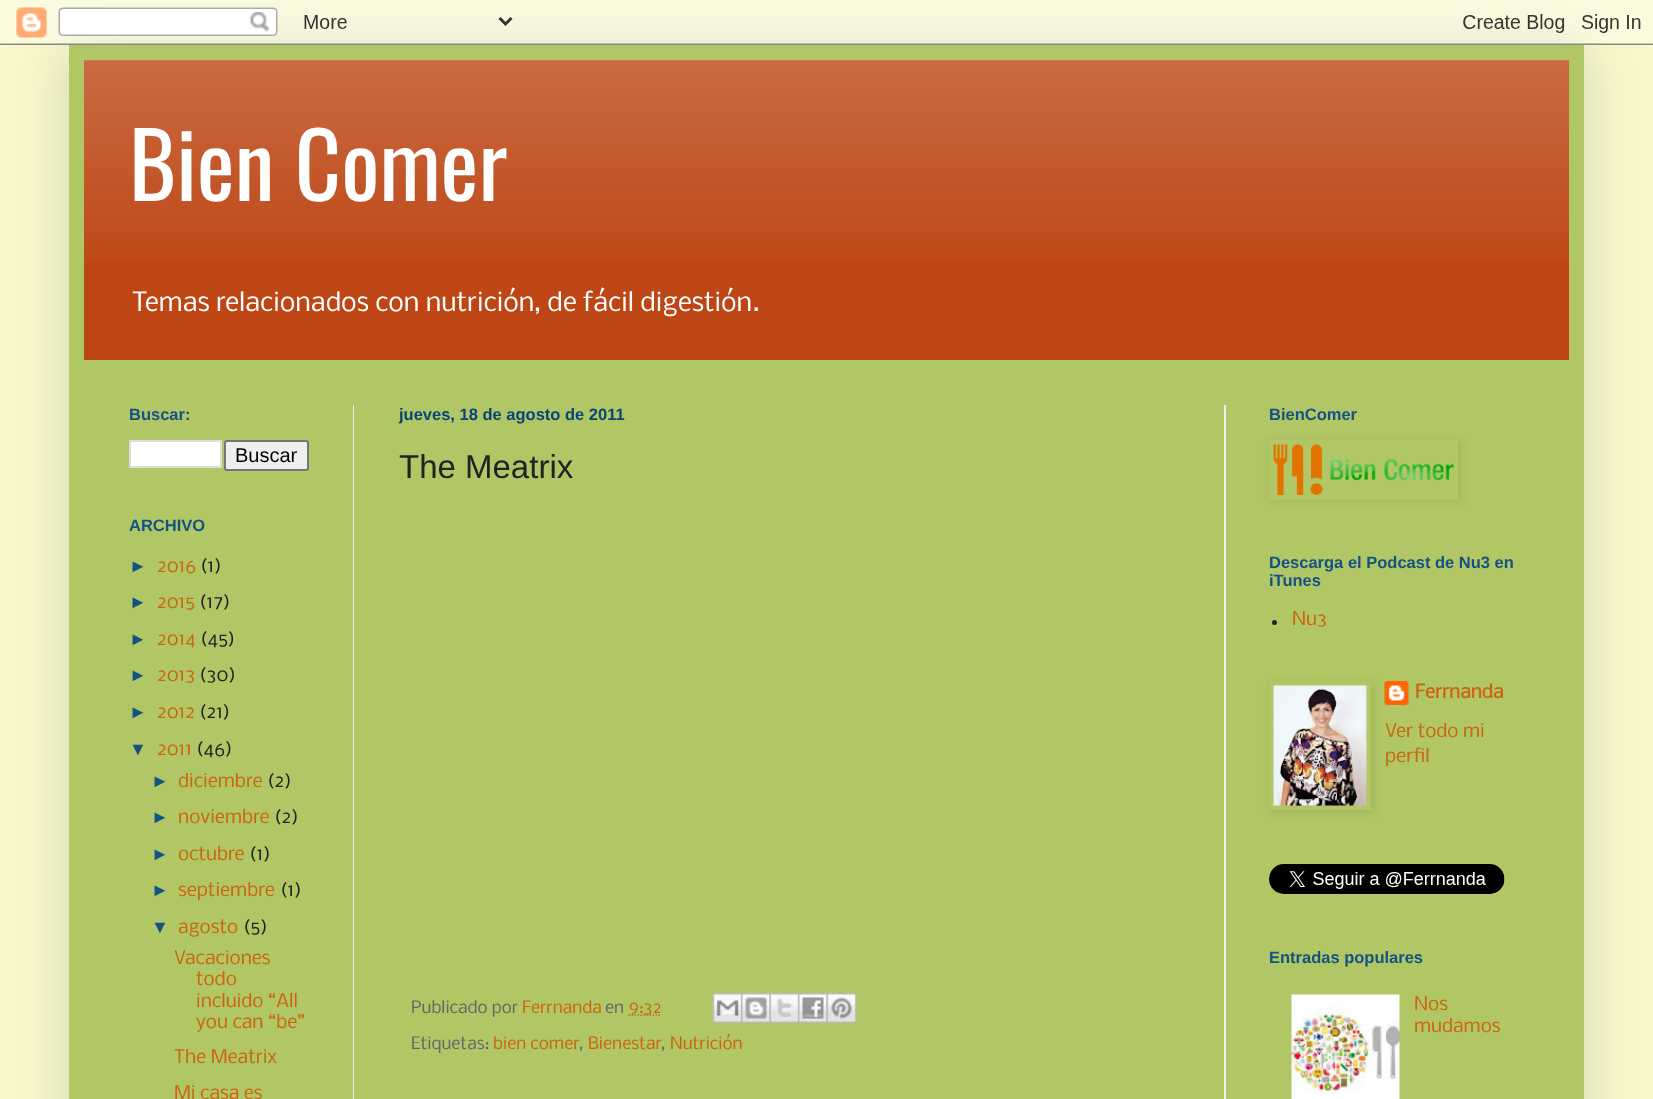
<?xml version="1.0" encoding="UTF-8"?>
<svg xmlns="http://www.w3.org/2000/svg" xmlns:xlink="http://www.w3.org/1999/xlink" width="1653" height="1099">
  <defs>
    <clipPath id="clip1"><path d="M 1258 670 h 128 v 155 h -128 z m 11 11 h 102 v 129 h -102 z" clip-rule="evenodd" /></clipPath>
  </defs>
  <rect width="100%" height="100%" fill="#f9f9cc" />
  <rect x="69" y="45" width="1515" height="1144" fill="#000000" fill-opacity="0.15" filter="blur(30px)" />
  <image x="0" y="0" width="1653" height="45" xlink:href="image1.png" />
  <rect x="69" y="45" width="1515" height="1054" fill="#b1c765" />
  <rect x="84" y="60" width="1485" height="300" fill="#bd4614" />
  <image x="84" y="60" width="1485" height="199" xlink:href="image2.png" />
  <rect x="353" y="405" width="1" height="694" fill="#eeeeee" />
  <rect x="1224" y="405" width="2" height="694" fill="#eeeeee" />
  <rect x="130" y="441" width="91" height="26" fill="#ffffff" stroke="#dddddd" stroke-width="2" />
  <rect x="225" y="441" width="83" height="29" rx="2" fill="#efefef" stroke="#767676" stroke-width="2" />
  <path d="M 628.5 1015 h 32.5" fill="none" stroke="#cc6411" stroke-width="1.5" stroke-dasharray="1.5 1.5" />
  <image x="712" y="993" width="29" height="30" xlink:href="image3.png" />
  <image x="741" y="993" width="29" height="30" xlink:href="image4.png" />
  <image x="769" y="993" width="29" height="30" xlink:href="image5.png" />
  <image x="798" y="993" width="29" height="30" xlink:href="image6.png" />
  <image x="826" y="993" width="31" height="30" xlink:href="image7.png" />
  <rect x="1271" y="441" width="189" height="60" fill="#000000" fill-opacity="0.1" filter="blur(4px)" />
  <rect x="1269" y="440" width="189" height="60" fill="#b1c765" />
  <image x="1273" y="444" width="181" height="51" xlink:href="image8.png" />
  <circle cx="1274.5" cy="622.5" r="2.5" fill="#222222" />
  <image x="1384" y="681" width="25" height="24" xlink:href="image10.png" />
  <g clip-path="url(#clip1)">
    <rect x="1271" y="683" width="102" height="129" fill="#000000" fill-opacity="0.1" filter="blur(4px)" />
  </g>
  <image x="1273" y="685" width="94" height="121" xlink:href="image9.png" />
  <image x="1269" y="864" width="236" height="30" xlink:href="image11.png" />
  <image x="1291" y="994" width="109" height="105" xlink:href="image12.png" />
  <text x="129" y="201" style="font-family: Oswald; font-size: 90px; fill: #ffffff">Bien Comer</text>
  <text x="132" y="311" style="font-family: Nobile; font-size: 25.2px; fill: #ffffff">Temas relacionados con nutrición, de fácil digestión.</text>
  <text x="129" y="420" style="font-family: Liberation Sans; font-size: 16.5px; font-weight: bold; fill: #155183">Buscar:</text>
  <text x="235" y="462" style="font-family: Liberation Sans; font-size: 20px; fill: #000000">Buscar</text>
  <text x="129" y="531" style="font-family: Liberation Sans; font-size: 16.5px; font-weight: bold; fill: #155183">ARCHIVO</text>
  <text x="129" y="572" style="font-family: Liberation Sans; font-size: 18px; fill: #155183">►</text>
  <text x="157" y="572" style="font-family: Nobile; font-size: 18px; fill: #cc6411">2016</text>
  <text x="200" y="572" style="font-family: Nobile; font-size: 18px; fill: #222222">(1)</text>
  <text x="129" y="608" style="font-family: Liberation Sans; font-size: 18px; fill: #155183">►</text>
  <text x="157" y="608" style="font-family: Nobile; font-size: 18px; fill: #cc6411">2015</text>
  <text x="199" y="608" style="font-family: Nobile; font-size: 18px; fill: #222222">(17)</text>
  <text x="129" y="645" style="font-family: Liberation Sans; font-size: 18px; fill: #155183">►</text>
  <text x="157" y="645" style="font-family: Nobile; font-size: 18px; fill: #cc6411">2014</text>
  <text x="200" y="645" style="font-family: Nobile; font-size: 18px; fill: #222222">(45)</text>
  <text x="129" y="681" style="font-family: Liberation Sans; font-size: 18px; fill: #155183">►</text>
  <text x="157" y="681" style="font-family: Nobile; font-size: 18px; fill: #cc6411">2013</text>
  <text x="199" y="681" style="font-family: Nobile; font-size: 18px; fill: #222222">(30)</text>
  <text x="129" y="718" style="font-family: Liberation Sans; font-size: 18px; fill: #155183">►</text>
  <text x="157" y="718" style="font-family: Nobile; font-size: 18px; fill: #cc6411">2012</text>
  <text x="199" y="718" style="font-family: Nobile; font-size: 18px; fill: #222222">(21)</text>
  <text x="129" y="755" style="font-family: Liberation Sans; font-size: 18px; fill: #155183">▼</text>
  <text x="157" y="755" style="font-family: Nobile; font-size: 18px; fill: #cc6411">2011</text>
  <text x="196" y="755" style="font-family: Nobile; font-size: 18px; fill: #222222">(46)</text>
  <text x="151" y="787" style="font-family: Liberation Sans; font-size: 18px; fill: #155183">►</text>
  <text x="178" y="787" style="font-family: Nobile; font-size: 18px; fill: #cc6411">diciembre</text>
  <text x="267" y="787" style="font-family: Nobile; font-size: 18px; fill: #222222">(2)</text>
  <text x="151" y="823" style="font-family: Liberation Sans; font-size: 18px; fill: #155183">►</text>
  <text x="178" y="823" style="font-family: Nobile; font-size: 18px; fill: #cc6411">noviembre</text>
  <text x="274" y="823" style="font-family: Nobile; font-size: 18px; fill: #222222">(2)</text>
  <text x="151" y="860" style="font-family: Liberation Sans; font-size: 18px; fill: #155183">►</text>
  <text x="178" y="860" style="font-family: Nobile; font-size: 18px; fill: #cc6411">octubre</text>
  <text x="249" y="860" style="font-family: Nobile; font-size: 18px; fill: #222222">(1)</text>
  <text x="151" y="896" style="font-family: Liberation Sans; font-size: 18px; fill: #155183">►</text>
  <text x="178" y="896" style="font-family: Nobile; font-size: 18px; fill: #cc6411">septiembre</text>
  <text x="280" y="896" style="font-family: Nobile; font-size: 18px; fill: #222222">(1)</text>
  <text x="151" y="933" style="font-family: Liberation Sans; font-size: 18px; fill: #155183">▼</text>
  <text x="178" y="933" style="font-family: Nobile; font-size: 18px; fill: #cc6411">agosto</text>
  <text x="243" y="933" style="font-family: Nobile; font-size: 18px; fill: #222222">(5)</text>
  <text x="174" y="964" style="font-family: Nobile; font-size: 18px; fill: #cc6411">Vacaciones</text>
  <text x="196" y="985" style="font-family: Nobile; font-size: 18px; fill: #cc6411">todo</text>
  <text x="196" y="1007" style="font-family: Nobile; font-size: 18px; fill: #cc6411">incluido “All</text>
  <text x="196" y="1028" style="font-family: Nobile; font-size: 18px; fill: #cc6411">you can “be”</text>
  <text x="174" y="1063" style="font-family: Nobile; font-size: 18px; fill: #cc6411">The Meatrix</text>
  <text x="174" y="1099" style="font-family: Nobile; font-size: 18px; fill: #cc6411">Mi casa es</text>
  <text x="399" y="420" style="font-family: Liberation Sans; font-size: 16.5px; font-weight: bold; fill: #0a4477">jueves, 18 de agosto de 2011</text>
  <text x="399" y="478" style="font-family: Liberation Sans; font-size: 33px; fill: #222222">The Meatrix</text>
  <text x="411" y="1013" style="font-family: Nobile; font-size: 16.25px; fill: #666666">Publicado por</text>
  <text x="522" y="1013" style="font-family: Nobile; font-size: 16.25px; fill: #cc6411">Ferrnanda</text>
  <text x="605" y="1013" style="font-family: Nobile; font-size: 16.25px; fill: #666666">en</text>
  <text x="629" y="1013" style="font-family: Nobile; font-size: 16.25px; fill: #cc6411">9:32</text>
  <text x="411" y="1049" style="font-family: Nobile; font-size: 16.25px; fill: #666666">Etiquetas:</text>
  <text x="493" y="1049" style="font-family: Nobile; font-size: 16.25px; fill: #cc6411">bien comer</text>
  <text x="579" y="1049" style="font-family: Nobile; font-size: 16.25px; fill: #666666">,</text>
  <text x="588" y="1049" style="font-family: Nobile; font-size: 16.25px; fill: #cc6411">Bienestar</text>
  <text x="661" y="1049" style="font-family: Nobile; font-size: 16.25px; fill: #666666">,</text>
  <text x="670" y="1049" style="font-family: Nobile; font-size: 16.25px; fill: #cc6411">Nutrición</text>
  <text x="1269" y="420" style="font-family: Liberation Sans; font-size: 16.5px; font-weight: bold; fill: #155183">BienComer</text>
  <text x="1269" y="568" style="font-family: Liberation Sans; font-size: 16.5px; font-weight: bold; fill: #155183">Descarga el Podcast de Nu3 en</text>
  <text x="1269" y="586" style="font-family: Liberation Sans; font-size: 16.5px; font-weight: bold; fill: #155183">iTunes</text>
  <text x="1292" y="625" style="font-family: Nobile; font-size: 18px; fill: #cc6411">Nu3</text>
  <text x="1415" y="698" style="font-family: Nobile; font-size: 18px; font-weight: bold; fill: #cc6411">Ferrnanda</text>
  <text x="1385" y="737" style="font-family: Nobile; font-size: 18px; fill: #cc6411">Ver todo mi</text>
  <text x="1385" y="762" style="font-family: Nobile; font-size: 18px; fill: #cc6411">perfil</text>
  <text x="1269" y="963" style="font-family: Liberation Sans; font-size: 16.5px; font-weight: bold; fill: #155183">Entradas populares</text>
  <text x="1414" y="1010" style="font-family: Nobile; font-size: 18px; fill: #cc6411">Nos</text>
  <text x="1414" y="1032" style="font-family: Nobile; font-size: 18px; fill: #cc6411">mudamos</text>
</svg>
